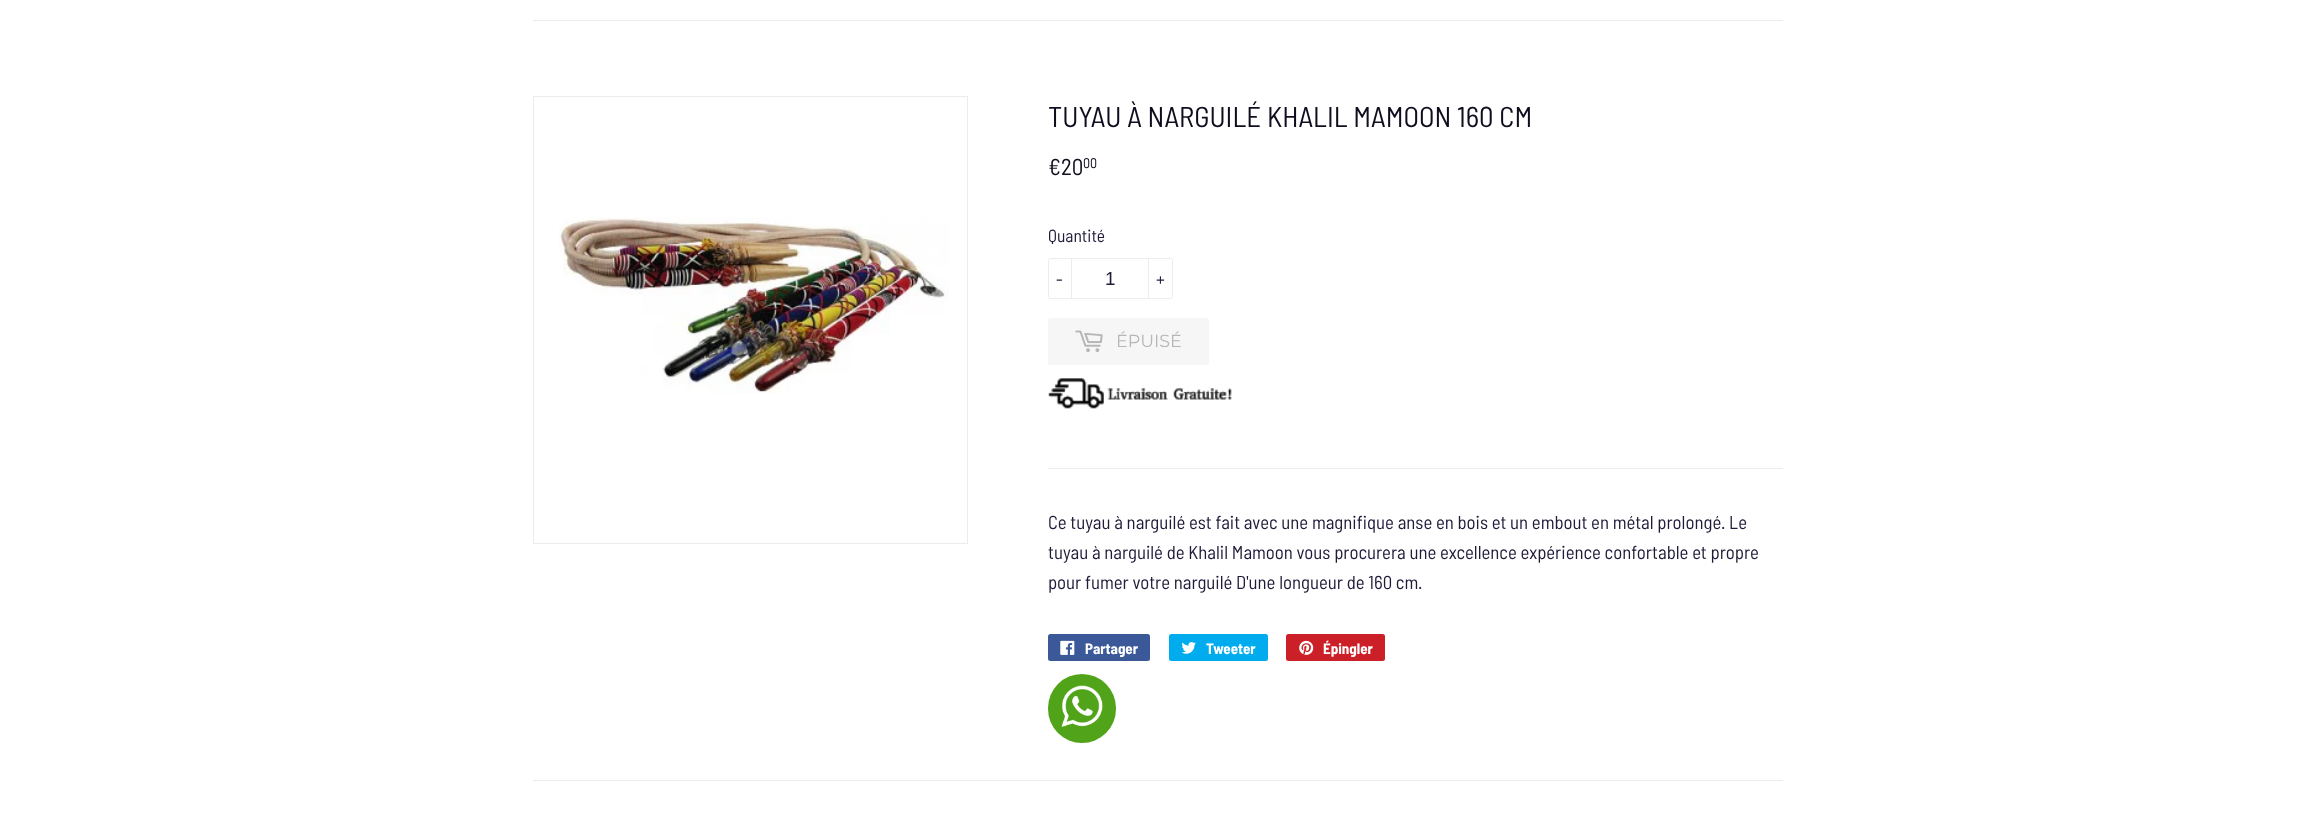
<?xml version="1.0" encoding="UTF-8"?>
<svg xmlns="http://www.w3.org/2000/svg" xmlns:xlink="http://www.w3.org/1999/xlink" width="2314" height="819">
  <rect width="100%" height="100%" fill="#ffffff" />
  <rect x="533" y="20" width="1250" height="1" fill="#ececec" />
  <rect x="533.5" y="96.5" width="434" height="447" fill="none" stroke="#ececec" />
  <image x="559" y="217" width="390" height="177" xlink:href="image1.png" />
  <rect x="1048.5" y="258.5" width="124" height="40" rx="2" fill="none" stroke="#ececec" />
  <rect x="1071" y="258" width="1" height="41" fill="#ececec" />
  <rect x="1148" y="258" width="1" height="41" fill="#ececec" />
  <rect x="1048" y="318" width="161" height="47" rx="2.5" fill="#f6f6f6" />
  <image x="1075" y="330" width="28" height="22" xlink:href="image2.png" />
  <image x="1048" y="378" width="184" height="31" xlink:href="image3.png" />
  <rect x="1048" y="468" width="735" height="1" fill="#ececec" />
  <rect x="1048" y="634" width="102" height="27" rx="2.5" fill="#3b5998" />
  <image x="1060" y="640" width="15" height="15" xlink:href="image4.png" />
  <rect x="1169" y="634" width="99" height="27" rx="2.5" fill="#00aced" />
  <image x="1181" y="642" width="15" height="12" xlink:href="image5.png" />
  <rect x="1286" y="634" width="99" height="27" rx="2.5" fill="#cb2027" />
  <image x="1299" y="640" width="15" height="15" xlink:href="image6.png" />
  <rect x="1048" y="674" width="68" height="69" rx="34" fill="#51a419" />
  <image x="1061" y="685" width="42" height="42" xlink:href="image7.png" />
  <rect x="533" y="780" width="1250" height="1" fill="#ececec" />
  <text x="1048" y="127" style="font-family: Barlow Semi Condensed; font-size: 28.75px; fill: #110c1e">TUYAU À NARGUILÉ KHALIL MAMOON 160 CM</text>
  <text x="1048" y="175" style="font-family: Barlow Semi Condensed; font-size: 23px; fill: #110c1e">€20</text>
  <text x="1083" y="168" style="font-family: Barlow Semi Condensed; font-size: 14px; fill: #110c1e">00</text>
  <text x="1048" y="242" style="font-family: Barlow Semi Condensed; font-size: 17.5px; fill: #211a39">Quantité</text>
  <text x="1056" y="286" style="font-family: Barlow Semi Condensed; font-size: 18.75px; fill: #211a39">-</text>
  <text x="1105" y="285" style="font-family: Liberation Sans; font-size: 18.75px; fill: #211a39">1</text>
  <text x="1156" y="286" style="font-family: Barlow Semi Condensed; font-size: 18.75px; fill: #211a39">+</text>
  <text x="1116" y="347" style="font-family: Montserrat; font-size: 17.5px; font-weight: 100; fill: #b6b6b6">ÉPUISÉ</text>
  <text x="1048" y="529" style="font-family: Barlow Semi Condensed; font-size: 18.75px; fill: #211a39">Ce tuyau à narguilé est fait avec une magnifique anse en bois et un embout en métal prolongé. Le</text>
  <text x="1048" y="559" style="font-family: Barlow Semi Condensed; font-size: 18.75px; fill: #211a39">tuyau à narguilé de Khalil Mamoon vous procurera une excellence expérience confortable et propre</text>
  <text x="1048" y="589" style="font-family: Barlow Semi Condensed; font-size: 18.75px; fill: #211a39">pour fumer votre narguilé D'une longueur de 160 cm.</text>
  <text x="1085" y="654" style="font-family: Barlow Semi Condensed; font-size: 15px; font-weight: bold; fill: #ffffff">Partager</text>
  <text x="1206" y="654" style="font-family: Barlow Semi Condensed; font-size: 15px; font-weight: bold; fill: #ffffff">Tweeter</text>
  <text x="1323" y="654" style="font-family: Barlow Semi Condensed; font-size: 15px; font-weight: bold; fill: #ffffff">Épingler</text>
</svg>
